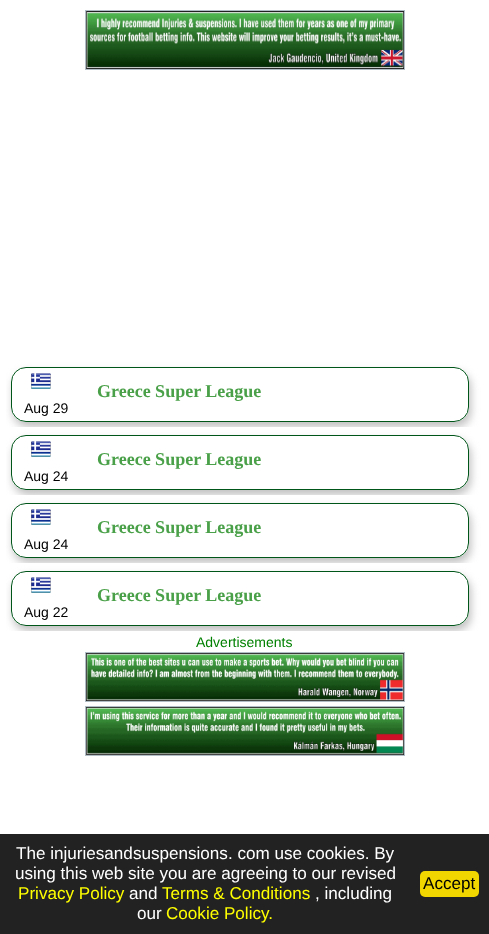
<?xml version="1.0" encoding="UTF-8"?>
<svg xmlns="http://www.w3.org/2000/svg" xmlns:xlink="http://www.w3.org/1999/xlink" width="489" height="934">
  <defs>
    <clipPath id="clip1"><rect x="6" y="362" width="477" height="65" /></clipPath>
    <clipPath id="clip2"><path d="M 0 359 h 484 v 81 h -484 z m 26 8 h 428 c 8.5 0 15 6.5 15 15 v 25 c 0 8.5 -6.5 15 -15 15 h -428 c -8.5 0 -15 -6.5 -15 -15 v -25 c 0 -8.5 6.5 -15 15 -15 z" clip-rule="evenodd" /></clipPath>
    <clipPath id="clip3"><rect x="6" y="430" width="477" height="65" /></clipPath>
    <clipPath id="clip4"><path d="M 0 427 h 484 v 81 h -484 z m 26 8 h 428 c 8.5 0 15 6.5 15 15 v 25 c 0 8.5 -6.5 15 -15 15 h -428 c -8.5 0 -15 -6.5 -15 -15 v -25 c 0 -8.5 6.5 -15 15 -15 z" clip-rule="evenodd" /></clipPath>
    <clipPath id="clip5"><rect x="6" y="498" width="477" height="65" /></clipPath>
    <clipPath id="clip6"><path d="M 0 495 h 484 v 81 h -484 z m 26 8 h 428 c 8.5 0 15 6.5 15 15 v 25 c 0 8.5 -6.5 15 -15 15 h -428 c -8.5 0 -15 -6.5 -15 -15 v -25 c 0 -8.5 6.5 -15 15 -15 z" clip-rule="evenodd" /></clipPath>
    <clipPath id="clip7"><rect x="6" y="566" width="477" height="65" /></clipPath>
    <clipPath id="clip8"><path d="M 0 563 h 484 v 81 h -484 z m 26 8 h 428 c 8.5 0 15 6.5 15 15 v 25 c 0 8.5 -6.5 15 -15 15 h -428 c -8.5 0 -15 -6.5 -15 -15 v -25 c 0 -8.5 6.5 -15 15 -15 z" clip-rule="evenodd" /></clipPath>
  </defs>
  <rect width="100%" height="100%" fill="#ffffff" />
  <rect x="85.5" y="10.5" width="319" height="59" fill="none" stroke="#b0bdc5" />
  <image x="86" y="11" width="318" height="58" xlink:href="image1.png" />
  <g clip-path="url(#clip1)">
    <g clip-path="url(#clip2)">
      <rect x="13" y="372" width="458" height="55" rx="15" fill="#c0c0c0" filter="blur(4px)" />
    </g>
  </g>
  <rect x="11.5" y="367.5" width="457" height="54" rx="14.5" fill="none" stroke="#005519" />
  <image x="31" y="373" width="20" height="16" xlink:href="image2.png" />
  <g clip-path="url(#clip3)">
    <g clip-path="url(#clip4)">
      <rect x="13" y="440" width="458" height="55" rx="15" fill="#c0c0c0" filter="blur(4px)" />
    </g>
  </g>
  <rect x="11.5" y="435.5" width="457" height="54" rx="14.5" fill="none" stroke="#005519" />
  <image x="31" y="441" width="20" height="16" xlink:href="image3.png" />
  <g clip-path="url(#clip5)">
    <g clip-path="url(#clip6)">
      <rect x="13" y="508" width="458" height="55" rx="15" fill="#c0c0c0" filter="blur(4px)" />
    </g>
  </g>
  <rect x="11.5" y="503.5" width="457" height="54" rx="14.5" fill="none" stroke="#005519" />
  <image x="31" y="509" width="20" height="16" xlink:href="image3.png" />
  <g clip-path="url(#clip7)">
    <g clip-path="url(#clip8)">
      <rect x="13" y="576" width="458" height="55" rx="15" fill="#c0c0c0" filter="blur(4px)" />
    </g>
  </g>
  <rect x="11.5" y="571.5" width="457" height="54" rx="14.5" fill="none" stroke="#005519" />
  <image x="31" y="577" width="20" height="16" xlink:href="image3.png" />
  <rect x="85.5" y="652.5" width="319" height="49" fill="none" stroke="#b0bdc5" />
  <image x="86" y="653" width="318" height="48" xlink:href="image4.png" />
  <rect x="85.5" y="706.5" width="319" height="49" fill="none" stroke="#b0bdc5" />
  <image x="86" y="707" width="318" height="48" xlink:href="image5.png" />
  <rect y="834" width="489" height="100" fill="#222222" />
  <rect x="420" y="871" width="59" height="26" rx="5" fill="#f1d600" />
  <text x="97" y="397" style="font-family: Liberation Serif; font-size: 18px; font-weight: bold; fill: #49a048">Greece Super League</text>
  <text x="24" y="413" style="font-family: Liberation Sans; font-size: 14px; fill: #000000">Aug 29</text>
  <text x="97" y="465" style="font-family: Liberation Serif; font-size: 18px; font-weight: bold; fill: #49a048">Greece Super League</text>
  <text x="24" y="481" style="font-family: Liberation Sans; font-size: 14px; fill: #000000">Aug 24</text>
  <text x="97" y="533" style="font-family: Liberation Serif; font-size: 18px; font-weight: bold; fill: #49a048">Greece Super League</text>
  <text x="24" y="549" style="font-family: Liberation Sans; font-size: 14px; fill: #000000">Aug 24</text>
  <text x="97" y="601" style="font-family: Liberation Serif; font-size: 18px; font-weight: bold; fill: #49a048">Greece Super League</text>
  <text x="24" y="617" style="font-family: Liberation Sans; font-size: 14px; fill: #000000">Aug 22</text>
  <text x="196" y="647" style="font-family: Liberation Sans; font-size: 14px; fill: #008000">Advertisements</text>
  <text x="16" y="859" style="font-family: Liberation Sans; font-size: 17.1px; fill: #ffffff">The injuriesandsuspensions. com use cookies. By</text>
  <text x="15" y="879" style="font-family: Liberation Sans; font-size: 17.1px; fill: #ffffff">using this web site you are agreeing to our revised</text>
  <text x="18" y="899" style="font-family: Liberation Sans; font-size: 17.1px; fill: #ffff00">Privacy Policy</text>
  <text x="129" y="899" style="font-family: Liberation Sans; font-size: 17.1px; fill: #ffffff">and</text>
  <text x="162" y="899" style="font-family: Liberation Sans; font-size: 17.1px; fill: #ffff00">Terms &amp; Conditions</text>
  <text x="315" y="899" style="font-family: Liberation Sans; font-size: 17.1px; fill: #ffffff">, including</text>
  <text x="137" y="919" style="font-family: Liberation Sans; font-size: 17.1px; fill: #ffffff">our</text>
  <text x="166" y="919" style="font-family: Liberation Sans; font-size: 17.1px; fill: #ffff00">Cookie Policy.</text>
  <text x="423" y="889" style="font-family: Liberation Sans; font-size: 17.1px; fill: #000000">Accept</text>
</svg>
